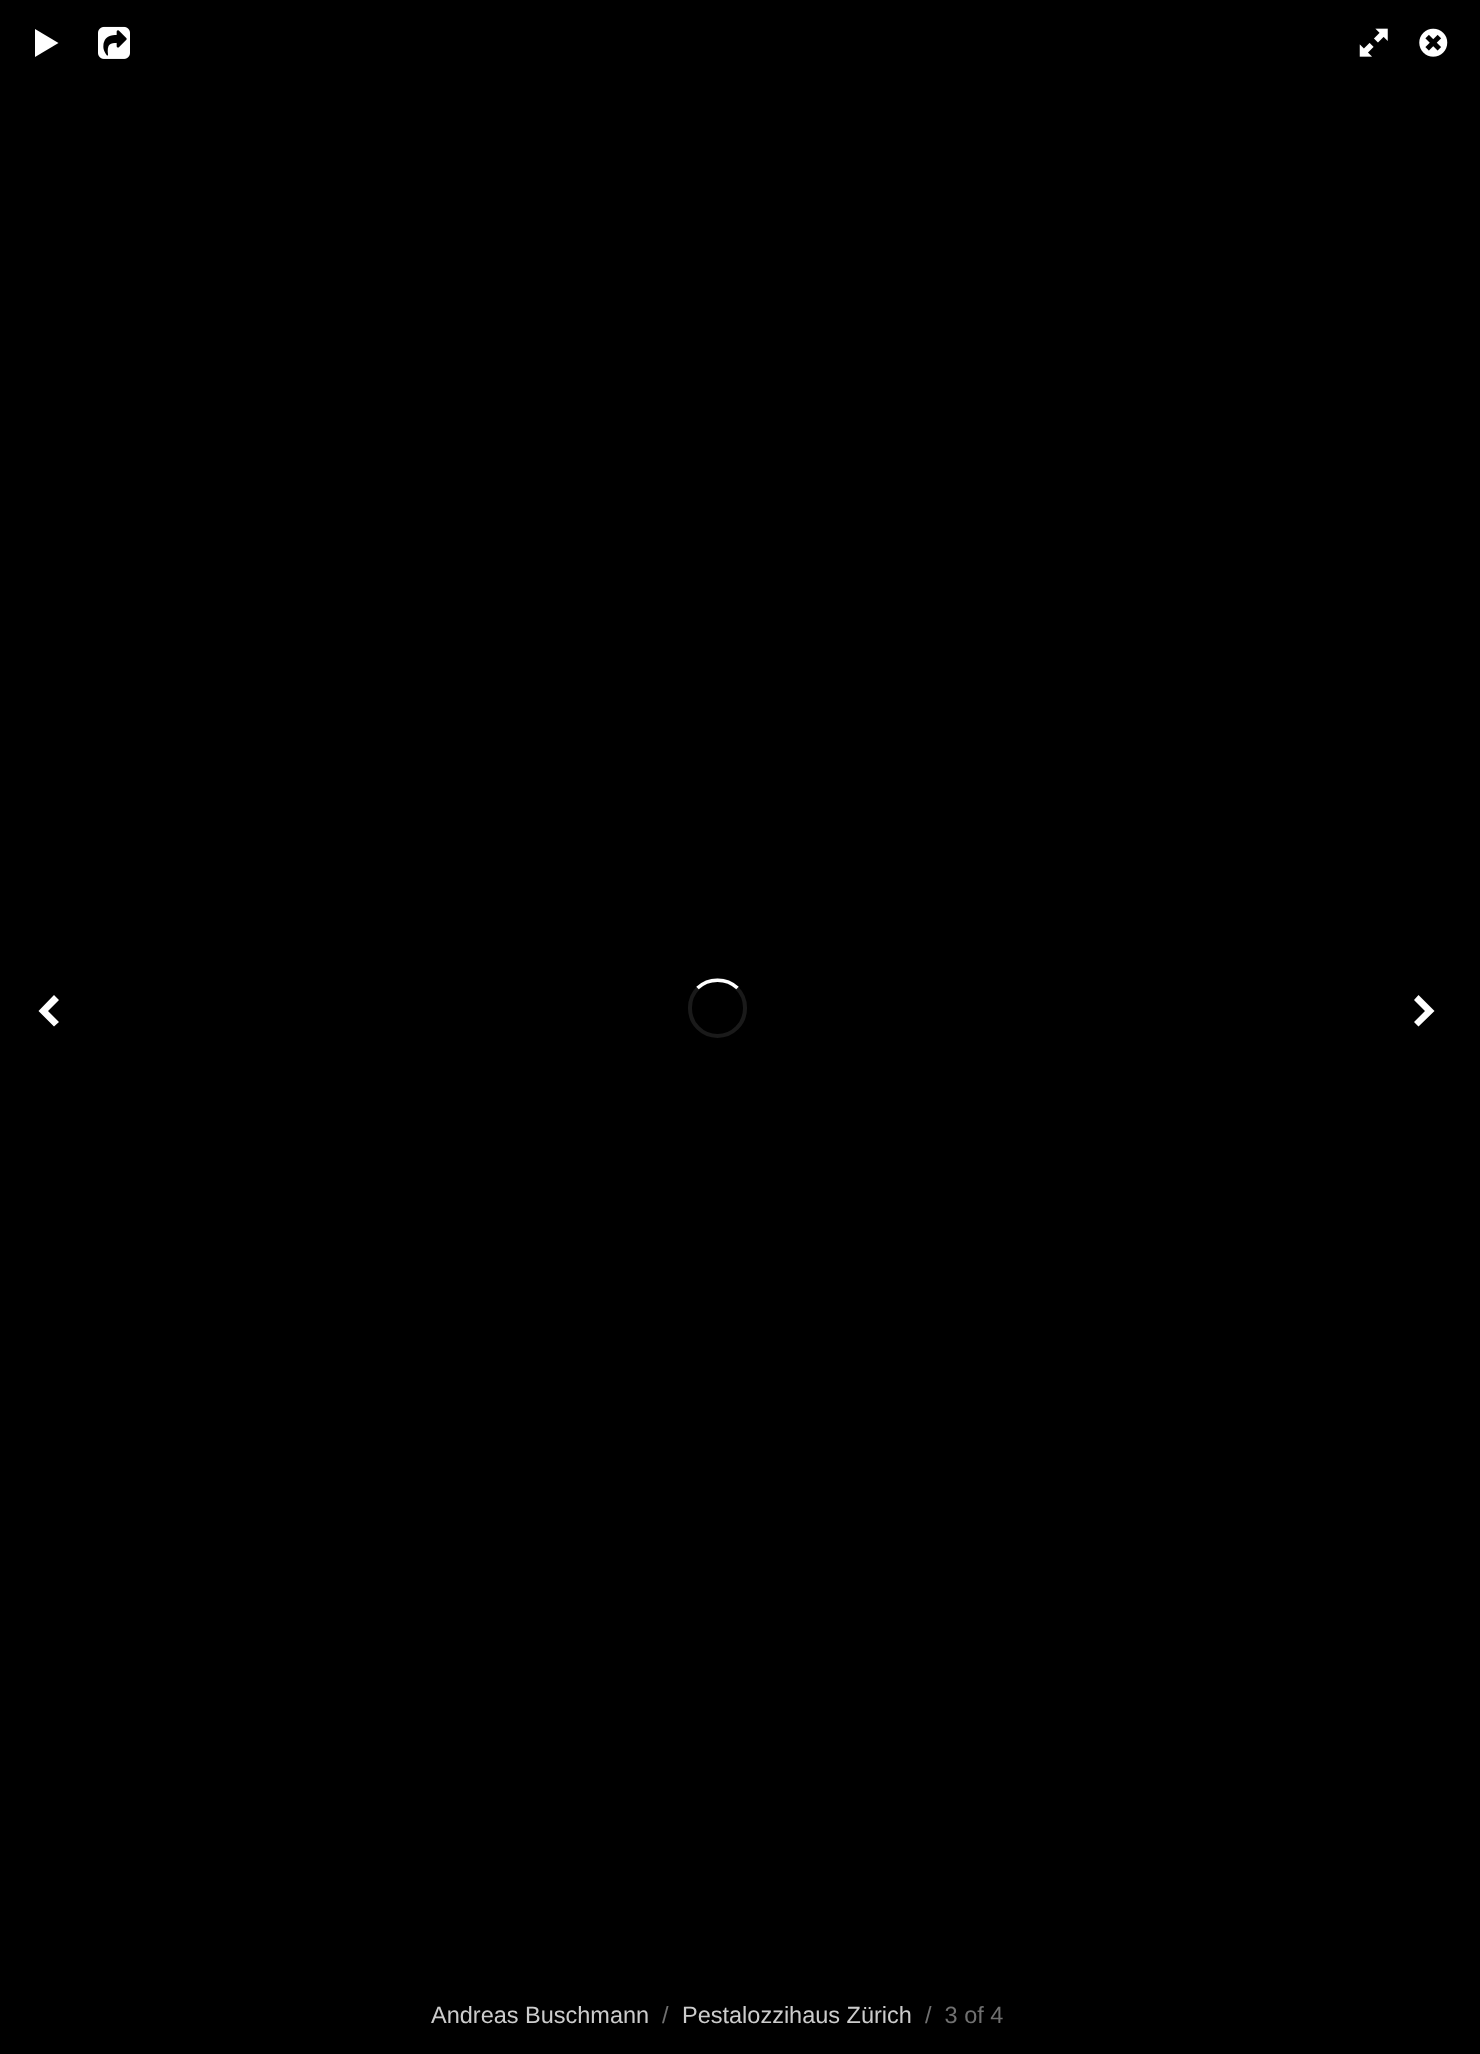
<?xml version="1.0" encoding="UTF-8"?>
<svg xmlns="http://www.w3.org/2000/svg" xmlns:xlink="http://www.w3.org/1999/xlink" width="1480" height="2054">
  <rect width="100%" height="100%" fill="#000000" />
  <path d="M 35 57 v -28 l 23.5 14 z" fill="#ffffff" />
  <image x="98" y="26" width="32" height="33" xlink:href="image1.png" />
  <image x="1359" y="28" width="29" height="29" xlink:href="image2.png" />
  <image x="1419" y="28" width="29" height="29" xlink:href="image3.png" />
  <path d="M 38.5 1011 l 15.5 -16 l 5 5 l -11 11 l 11 11 l -5 4.5 z" fill="#ffffff" />
  <rect x="690" y="980" width="55" height="56" rx="27.5" fill="none" stroke="#1a1a1a" stroke-width="4" />
  <path d="M 697.5 988 c 11 -10.5 29 -10.5 40 0" fill="none" stroke="#ffffff" stroke-width="3.5" />
  <path d="M 1414 1022 l 11 -11 l -11 -11 l 4.5 -5 l 16 16 l -16 15.5 z" fill="#ffffff" />
  <text x="431" y="2023" style="font-family: Liberation Sans; font-size: 23.5px; fill: #cccccc">Andreas Buschmann</text>
  <text x="662" y="2023" style="font-family: Liberation Sans; font-size: 23.5px; fill: #707070">/</text>
  <text x="682" y="2023" style="font-family: Liberation Sans; font-size: 23.5px; fill: #cccccc">Pestalozzihaus Zürich</text>
  <text x="925" y="2023" style="font-family: Liberation Sans; font-size: 23.5px; fill: #707070" xml:space="preserve">/  3 of 4</text>
</svg>
